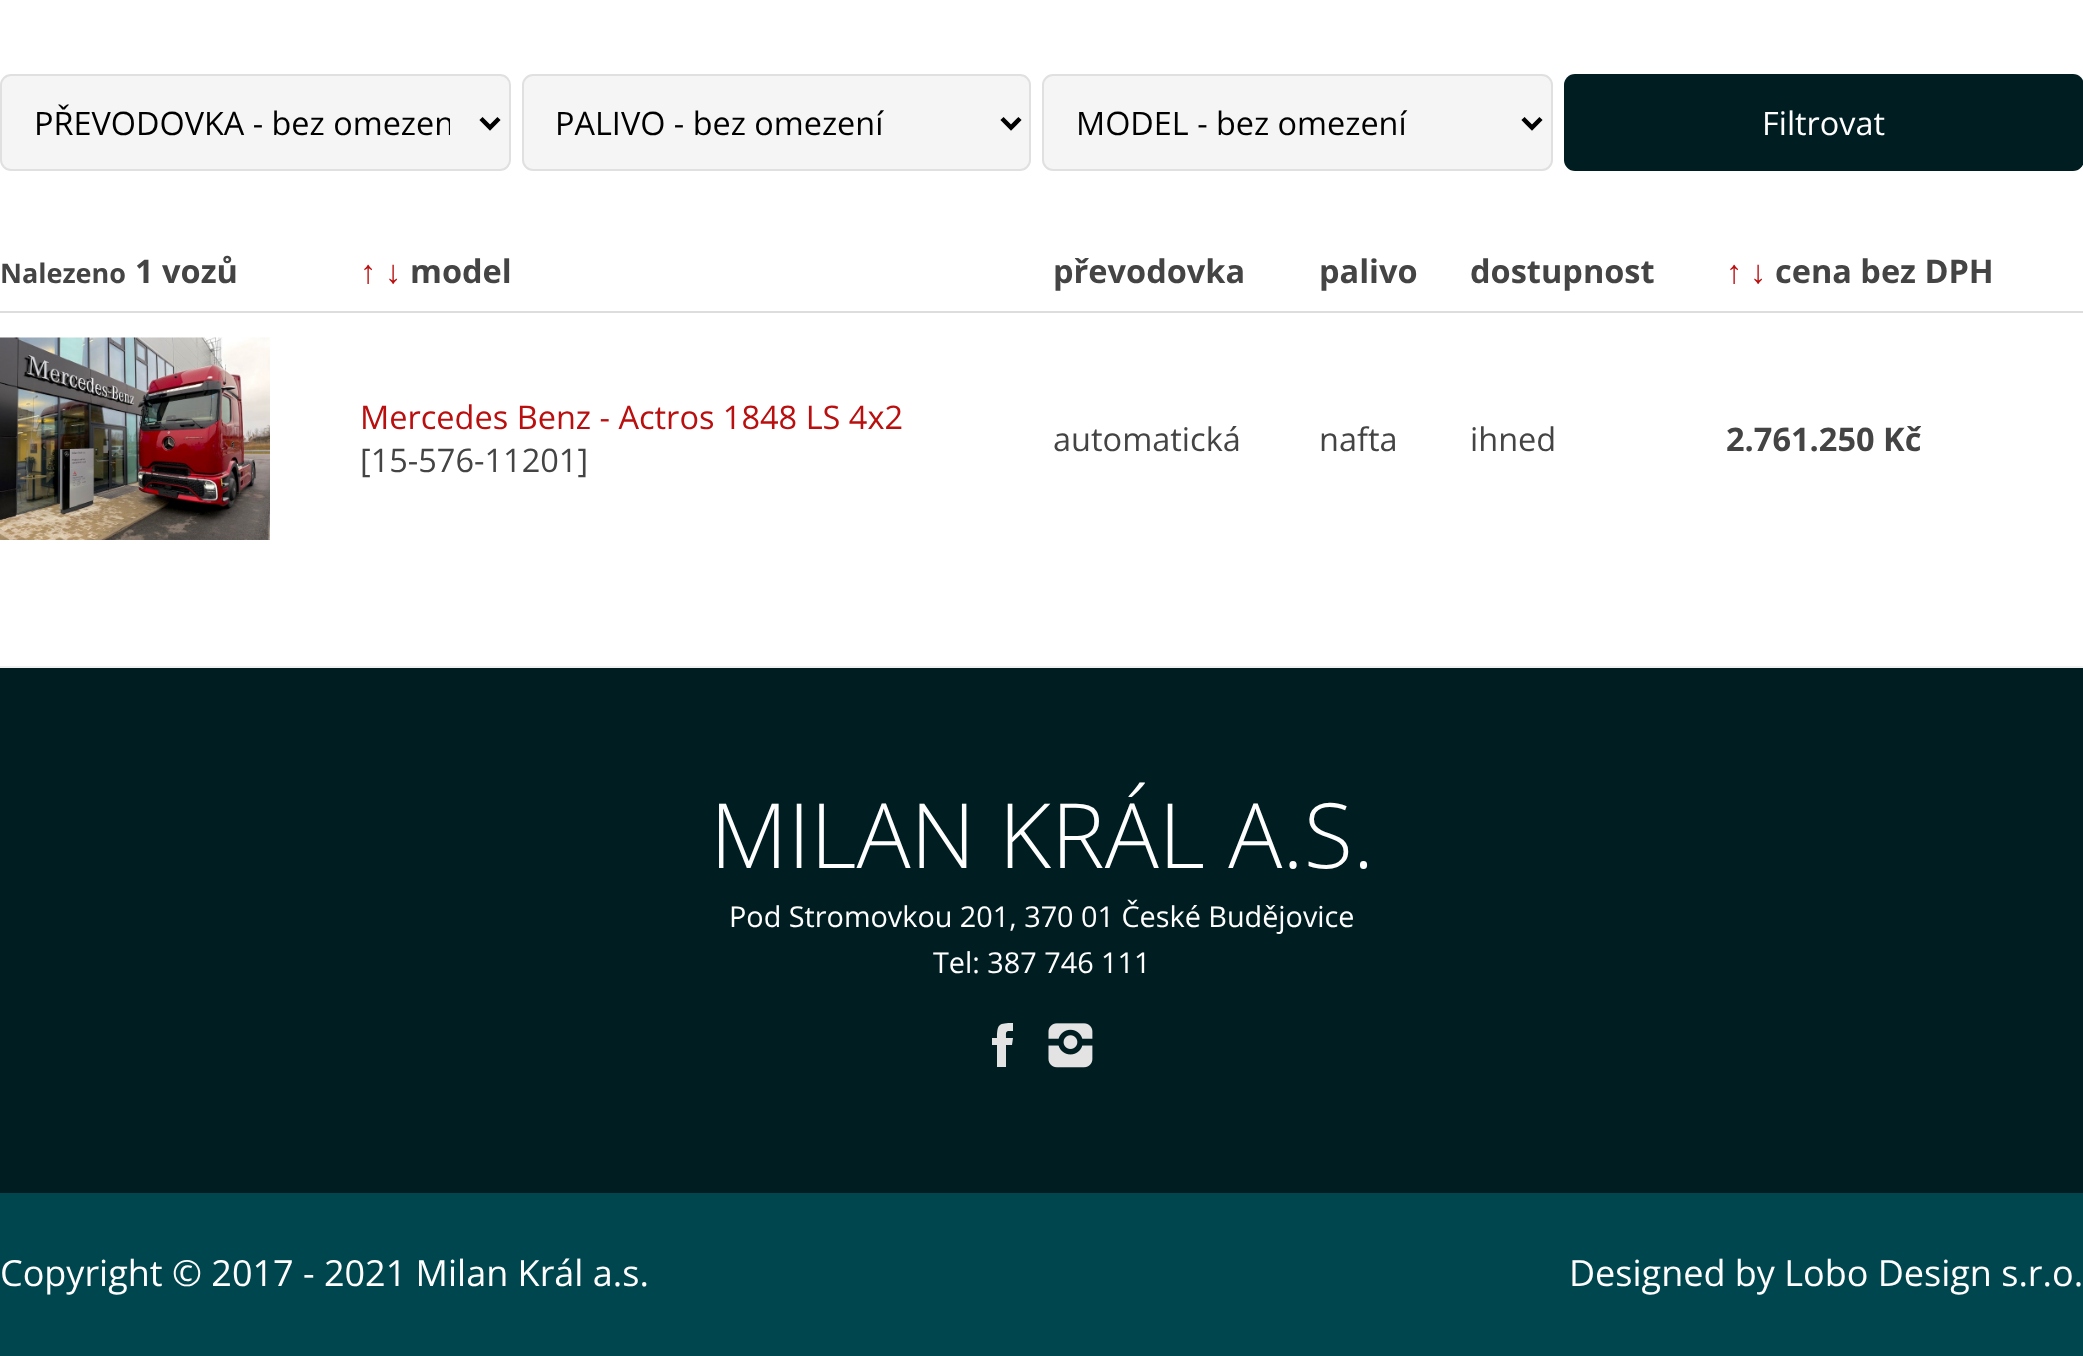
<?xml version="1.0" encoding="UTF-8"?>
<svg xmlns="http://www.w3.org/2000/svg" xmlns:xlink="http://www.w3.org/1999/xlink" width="2083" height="1356">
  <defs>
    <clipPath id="clip1"><rect x="34" y="99" width="416" height="47" /></clipPath>
  </defs>
  <rect width="100%" height="100%" fill="#ffffff" />
  <rect y="666" width="2083" height="2" fill="#f0f0f0" />
  <rect x="1" y="75" width="509" height="95" rx="10" fill="#f5f5f5" stroke="#e0e0e0" stroke-width="2" />
  <path d="M 481 118.5 l 9 9 l 9 -9" fill="none" stroke="#000000" stroke-width="4.5" />
  <rect x="523" y="75" width="507" height="95" rx="10" fill="#f5f5f5" stroke="#e0e0e0" stroke-width="2" />
  <path d="M 1002 118.5 l 9 9 l 9 -9" fill="none" stroke="#000000" stroke-width="4.5" />
  <rect x="1043" y="75" width="509" height="95" rx="10" fill="#f5f5f5" stroke="#e0e0e0" stroke-width="2" />
  <path d="M 1523 118.5 l 9 9 l 9 -9" fill="none" stroke="#000000" stroke-width="4.5" />
  <rect x="1564" y="74" width="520" height="97" rx="11" fill="#001e22" />
  <rect y="311" width="2083" height="2" fill="#dddddd" />
  <image x="0" y="337" width="270" height="203" xlink:href="image1.png" />
  <rect y="668" width="2083" height="525" fill="#001e22" />
  <path d="M 992 1045 h 5 v 22 h 9 v -22 h 6 l 1 -7 h -7 c 0 -7 -1 -7 7 -7 v -8 c -14 0 -16 1 -16 15 h -5 z" fill="#e3e3e3" />
  <image x="1048" y="1023" width="45" height="45" xlink:href="image2.png" />
  <rect y="1193" width="2083" height="163" fill="#00464f" />
  <g clip-path="url(#clip1)">
    <text x="34" y="135" style="font-family: Open Sans; font-size: 32.4px; fill: #000000">PŘEVODOVKA - bez omezen</text>
  </g>
  <text x="555" y="135" style="font-family: Open Sans; font-size: 32.4px; fill: #000000">PALIVO - bez omezení</text>
  <text x="1076" y="135" style="font-family: Open Sans; font-size: 32.4px; fill: #000000">MODEL - bez omezení</text>
  <text x="1762" y="135" style="font-family: Open Sans; font-size: 32.4px; fill: #ffffff">Filtrovat</text>
  <text x="0" y="283" style="font-family: Open Sans; font-size: 27px; font-weight: bold; fill: #444444">Nalezeno</text>
  <text x="135" y="283" style="font-family: Open Sans; font-size: 32.5px; font-weight: bold; fill: #444444">1 vozů</text>
  <text x="360" y="283" style="font-family: Liberation Sans; font-size: 32.5px; font-weight: bold; fill: #b90f0f">↑</text>
  <text x="385" y="283" style="font-family: Liberation Sans; font-size: 32.5px; font-weight: bold; fill: #b90f0f">↓</text>
  <text x="410" y="283" style="font-family: Open Sans; font-size: 32.5px; font-weight: bold; fill: #444444">model</text>
  <text x="1053" y="283" style="font-family: Open Sans; font-size: 32.5px; font-weight: bold; fill: #444444">převodovka</text>
  <text x="1319" y="283" style="font-family: Open Sans; font-size: 32.5px; font-weight: bold; fill: #444444">palivo</text>
  <text x="1470" y="283" style="font-family: Open Sans; font-size: 32.5px; font-weight: bold; fill: #444444">dostupnost</text>
  <text x="1726" y="283" style="font-family: Liberation Sans; font-size: 32.5px; font-weight: bold; fill: #b90f0f">↑</text>
  <text x="1750" y="283" style="font-family: Liberation Sans; font-size: 32.5px; font-weight: bold; fill: #b90f0f">↓</text>
  <text x="1775" y="283" style="font-family: Open Sans; font-size: 32.5px; font-weight: bold; fill: #444444">cena bez DPH</text>
  <text x="360" y="429" style="font-family: Open Sans; font-size: 32.5px; fill: #b90f0f">Mercedes Benz - Actros 1848 LS 4x2</text>
  <text x="360" y="472" style="font-family: Open Sans; font-size: 32.5px; fill: #444444">[15-576-11201]</text>
  <text x="1053" y="451" style="font-family: Open Sans; font-size: 32.5px; fill: #444444">automatická</text>
  <text x="1319" y="451" style="font-family: Open Sans; font-size: 32.5px; fill: #444444">nafta</text>
  <text x="1470" y="451" style="font-family: Open Sans; font-size: 32.5px; fill: #444444">ihned</text>
  <text x="1726" y="451" style="font-family: Open Sans; font-size: 32.5px; font-weight: bold; fill: #444444">2.761.250 Kč</text>
  <text x="710" y="868" style="font-family: Open Sans; font-size: 90px; font-weight: 300; fill: #ffffff">MILAN KRÁL A.S.</text>
  <text x="729" y="927" style="font-family: Open Sans; font-size: 28.8px; fill: #ffffff">Pod Stromovkou 201, 370 01 České Budějovice</text>
  <text x="933" y="973" style="font-family: Open Sans; font-size: 28.8px; fill: #ffffff">Tel: 387 746 111</text>
  <text x="0" y="1286" style="font-family: Open Sans; font-size: 36px; fill: #ffffff">Copyright © 2017 - 2021 Milan Král a.s.</text>
  <text x="1569" y="1286" style="font-family: Open Sans; font-size: 36px; fill: #ffffff">Designed by Lobo Design s.r.o.</text>
</svg>
